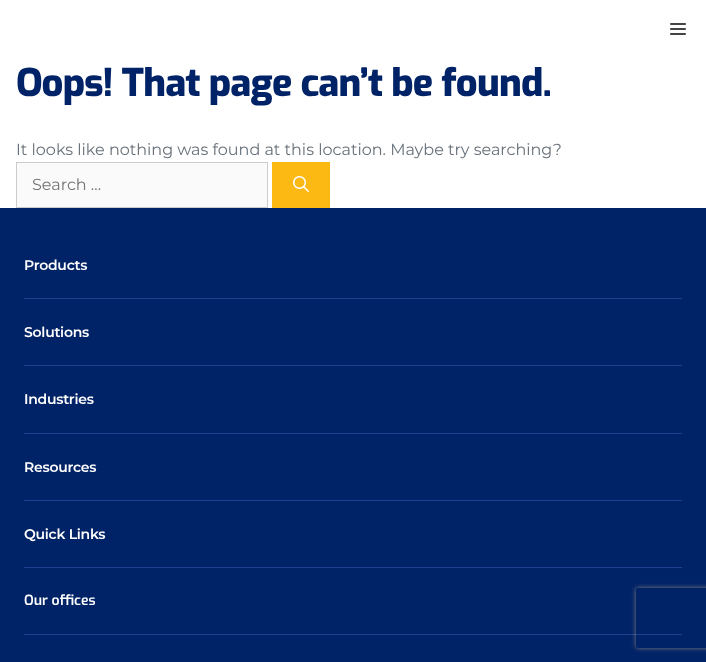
<?xml version="1.0" encoding="UTF-8"?>
<svg xmlns="http://www.w3.org/2000/svg" xmlns:xlink="http://www.w3.org/1999/xlink" width="706" height="662">
  <defs>
    <clipPath id="clip1"><path d="M 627 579 h 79 v 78 h -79 z m 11 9 h 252 c 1 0 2 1 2 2 v 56 c 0 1 -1 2 -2 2 h -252 c -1 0 -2 -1 -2 -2 v -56 c 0 -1 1 -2 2 -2 z" clip-rule="evenodd" /></clipPath>
  </defs>
  <rect width="100%" height="100%" fill="#ffffff" />
  <image x="670" y="23" width="16" height="12" xlink:href="image1.png" />
  <rect x="16.5" y="162.5" width="251" height="45" fill="#fafafa" stroke="#cccccc" />
  <rect x="272" y="162" width="58" height="46" fill="#fcb813" />
  <image x="293" y="176" width="16" height="16" xlink:href="image2.png" />
  <rect y="208" width="706" height="454" fill="#002266" />
  <rect x="24" y="298" width="658" height="1" fill="#243e90" />
  <rect x="24" y="365" width="658" height="1" fill="#243e90" />
  <rect x="24" y="433" width="658" height="1" fill="#243e90" />
  <rect x="24" y="500" width="658" height="1" fill="#243e90" />
  <rect x="24" y="567" width="658" height="1" fill="#243e90" />
  <rect x="24" y="634" width="658" height="1" fill="#243e90" />
  <g clip-path="url(#clip1)">
    <rect x="636" y="588" width="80" height="60" rx="2" fill="#808080" filter="blur(2.5px)" />
  </g>
  <text x="16" y="96" style="font-family: Exo; font-size: 38px; font-weight: 800; letter-spacing: -0.75px; fill: #002266">Oops! That page can’t be found.</text>
  <text x="16" y="155" style="font-family: Montserrat; font-size: 16px; fill: #68717a">It looks like nothing was found at this location. Maybe try searching?</text>
  <text x="32" y="190" style="font-family: Montserrat; font-size: 16px; fill: #757575">Search …</text>
  <text x="24" y="270" style="font-family: Montserrat; font-size: 14px; font-weight: 600; letter-spacing: -0.25px; fill: #ffffff">Products</text>
  <text x="24" y="337" style="font-family: Montserrat; font-size: 14px; font-weight: 600; letter-spacing: -0.25px; fill: #ffffff">Solutions</text>
  <text x="24" y="404" style="font-family: Montserrat; font-size: 14px; font-weight: 600; letter-spacing: -0.25px; fill: #ffffff">Industries</text>
  <text x="24" y="472" style="font-family: Montserrat; font-size: 14px; font-weight: 600; letter-spacing: -0.25px; fill: #ffffff">Resources</text>
  <text x="24" y="539" style="font-family: Montserrat; font-size: 14px; font-weight: 600; letter-spacing: -0.25px; fill: #ffffff">Quick Links</text>
  <text x="24" y="605" style="font-family: Exo; font-size: 14px; font-weight: 600; fill: #ffffff">Our offices</text>
</svg>
